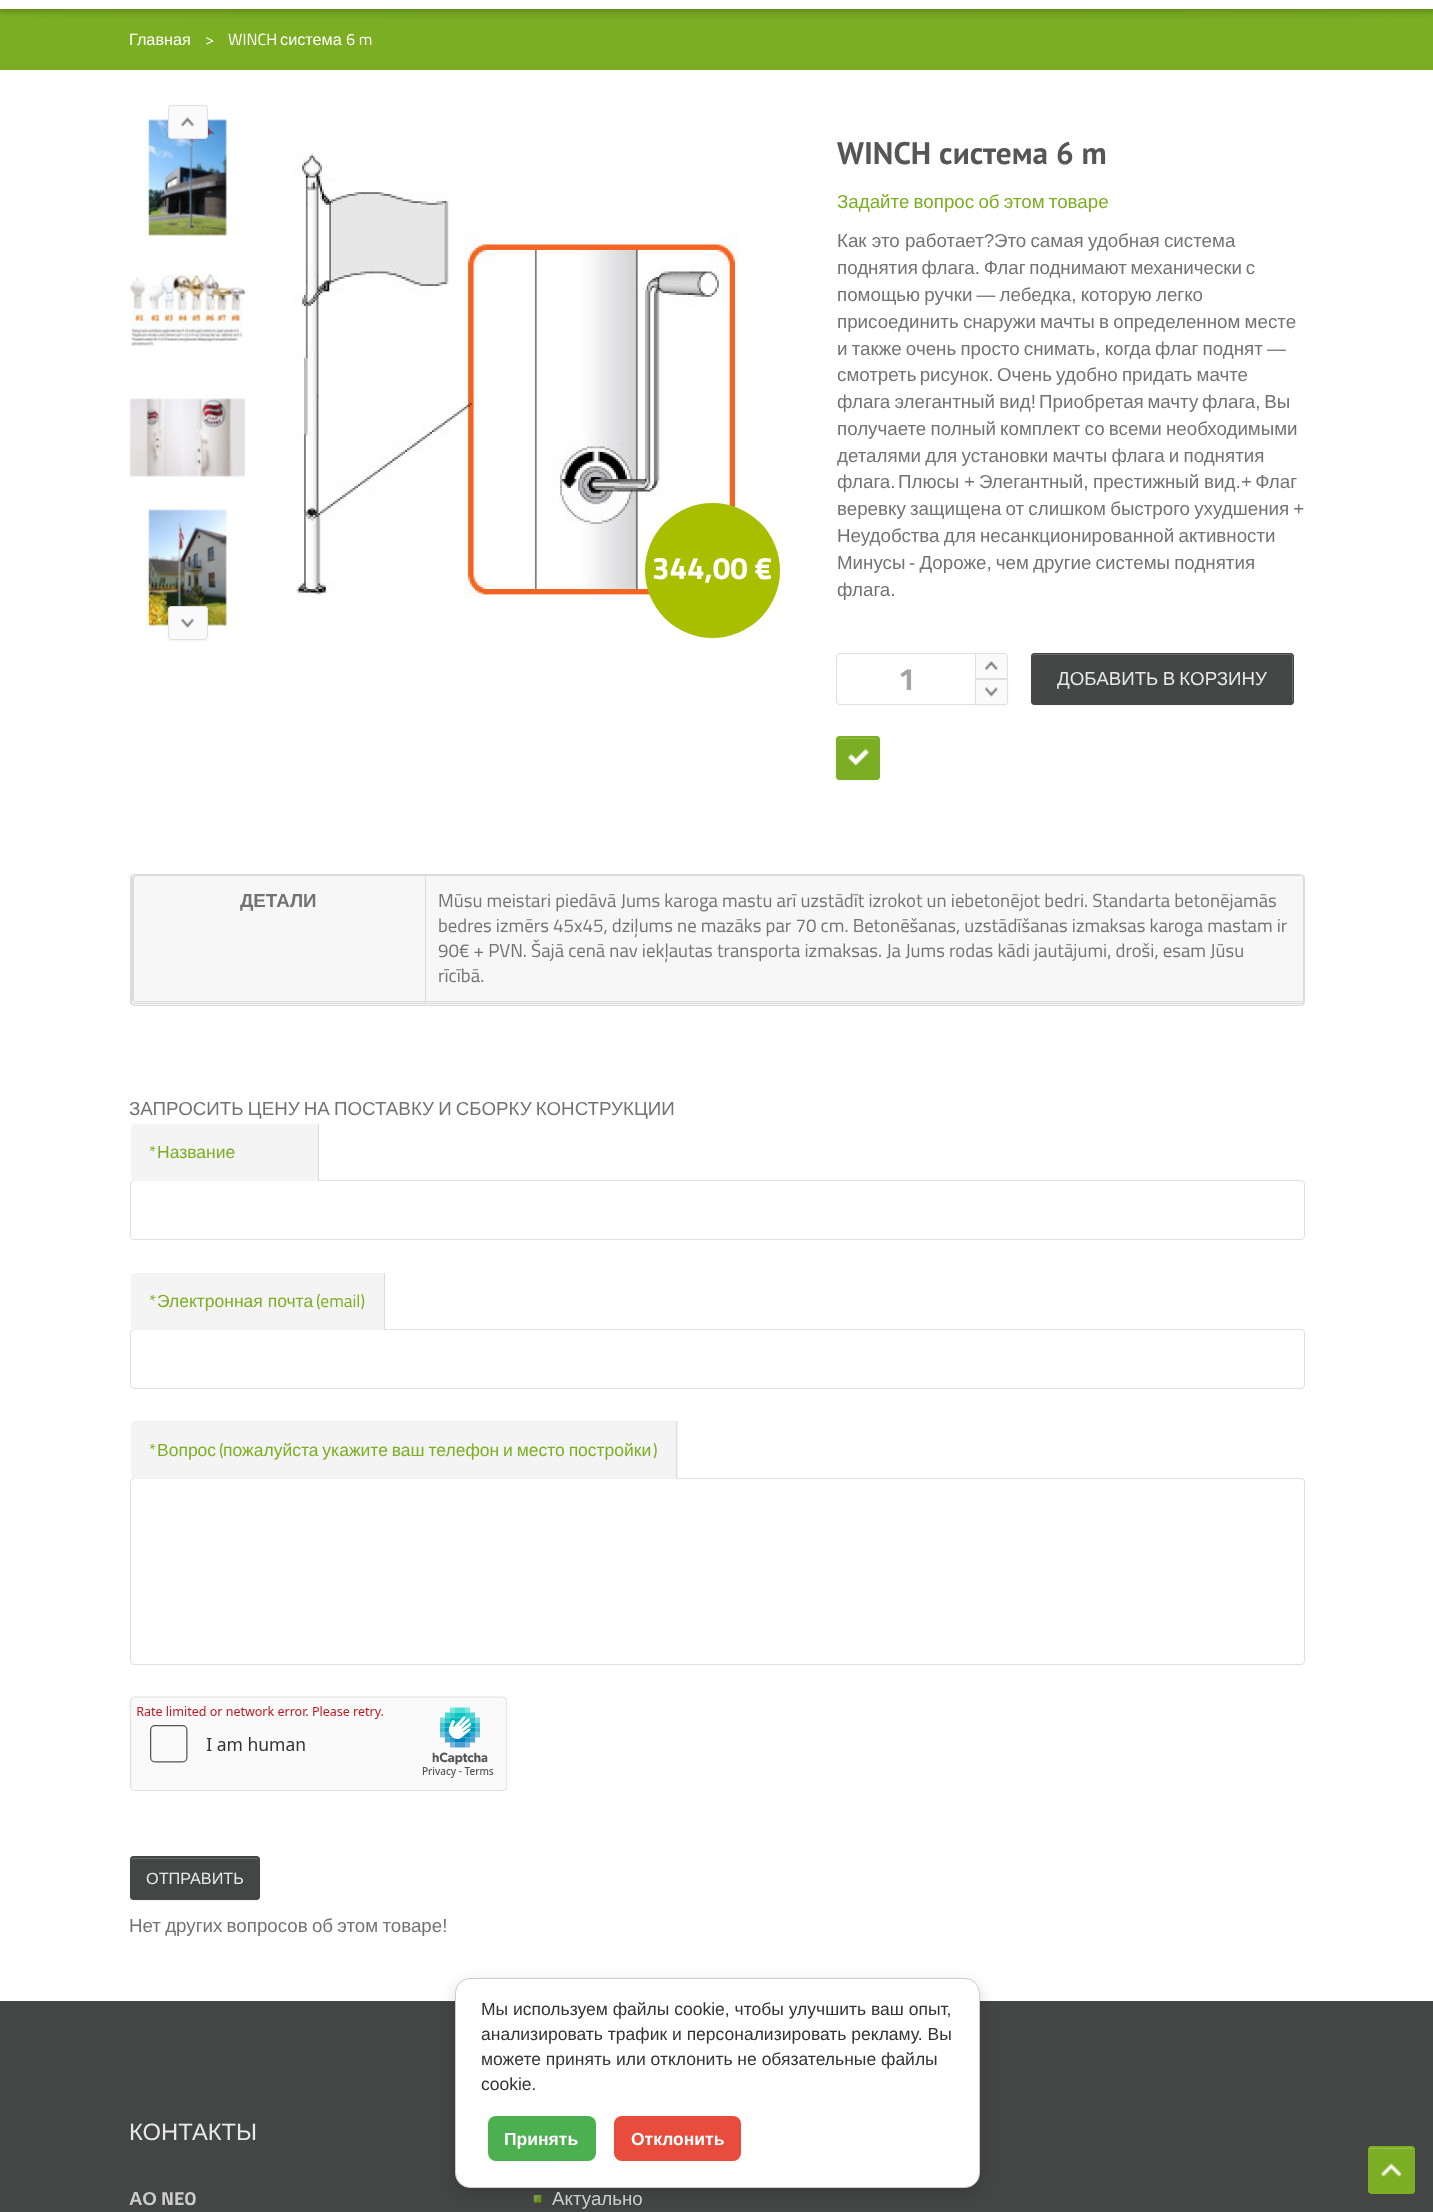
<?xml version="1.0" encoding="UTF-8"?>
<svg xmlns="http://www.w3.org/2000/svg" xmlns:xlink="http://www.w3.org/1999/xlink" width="1433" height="2212">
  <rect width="100%" height="100%" fill="#ffffff" />
  <rect y="9" width="1433" height="61" fill="#7bae23" />
  <rect y="-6" width="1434" height="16" fill="#000000" fill-opacity="0.15" filter="blur(2px)" />
  <rect width="1433" height="9" fill="#ffffff" />
  <image x="0" y="8" width="1433" height="11" xlink:href="image1.png" />
  <image x="145" y="119" width="83" height="117" xlink:href="image4.png" />
  <rect x="168" y="106" width="40" height="34" rx="4" fill="#000000" fill-opacity="0.05" filter="blur(1px)" />
  <rect x="168" y="105" width="40" height="34" rx="4" fill="#fafafa" />
  <image x="181" y="117" width="13" height="10" xlink:href="image2.png" />
  <rect x="168.5" y="105.5" width="39" height="33" rx="3.5" fill="none" stroke="#e0e0e0" />
  <image x="145" y="509" width="83" height="117" xlink:href="image7.png" />
  <rect x="168" y="608" width="40" height="33" rx="4" fill="#000000" fill-opacity="0.05" filter="blur(1px)" />
  <rect x="168" y="606" width="40" height="34" rx="4" fill="#fafafa" />
  <image x="181" y="618" width="13" height="10" xlink:href="image3.png" />
  <rect x="168.5" y="606.5" width="39" height="33" rx="3.5" fill="none" stroke="#e0e0e0" />
  <image x="130" y="273" width="115" height="73" xlink:href="image5.png" />
  <image x="130" y="398" width="115" height="79" xlink:href="image6.png" />
  <image x="292" y="151" width="447" height="445" xlink:href="image8.png" />
  <circle cx="712.5" cy="570.5" r="67.5" fill="#a8bf00" />
  <rect x="836.5" y="653.5" width="171" height="51" rx="3.5" fill="none" stroke="#e0e0e0" />
  <path d="M 975 653 h 29 c 2 0 4 2 4 4 v 22 h -33 z" fill="#fafafa" />
  <image x="985" y="661" width="13" height="9" xlink:href="image9.png" />
  <path d="M 975.5 653.5 h 28.5 c 2 0 3.5 1.5 3.5 3.5 v 21.5 h -32 z" fill="none" stroke="#e0e0e0" />
  <rect x="975" y="680" width="33" height="26" rx="4" fill="#000000" fill-opacity="0.05" filter="blur(1px)" />
  <path d="M 975 679 h 33 v 22 c 0 2 -2 4 -4 4 h -29 z" fill="#fafafa" />
  <image x="985" y="687" width="13" height="10" xlink:href="image10.png" />
  <path d="M 975.5 679.5 h 32 v 21.5 c 0 2 -1.5 3.5 -3.5 3.5 h -28.5 z" fill="none" stroke="#e0e0e0" />
  <rect x="1031" y="654" width="263" height="52" rx="4" fill="#000000" fill-opacity="0.05" filter="blur(1px)" />
  <rect x="1031" y="653" width="263" height="52" rx="4" fill="#444645" />
  <path d="M 1035 655 h 255 c 1 0 2 1 2 3 v 46 c 0 -1 1 -2 1 -2 v -46 c 0 -1 -1 -2 -3 -2 h -254 c -2 0 -3 1 -3 2 z" fill="#696b6a" />
  <rect x="1031.5" y="653.5" width="262" height="51" rx="3.5" fill="none" stroke="#444645" />
  <rect x="836" y="738" width="44" height="43" rx="4" fill="#000000" fill-opacity="0.05" filter="blur(1px)" />
  <rect x="836" y="736" width="44" height="44" rx="4" fill="#7bae23" />
  <image x="847" y="748" width="22" height="18" xlink:href="image11.png" />
  <path d="M 840 739 h 36 c 2 0 3 1 3 2 c 0 -4 -6 -3 -9 -3 h -24 c -2 0 -8 -1 -8 3 c 0 -1 1 -2 2 -2 z" fill="#95be4f" />
  <rect x="836.5" y="736.5" width="43" height="43" rx="3.5" fill="none" stroke="#7bae23" />
  <rect x="130.5" y="874.5" width="1174" height="131" rx="3.5" fill="#f7f7f7" stroke="#dcdcdc" />
  <rect x="131" y="1003" width="1173" height="1" fill="#dcdcdc" />
  <rect x="131" y="875" width="1" height="129" fill="#dcdcdc" />
  <path d="M 136 875 h 1164 c 2 0 4 2 4 4 v 120 c 0 2 -2 3 -4 3 h -1164 c -2 0 -4 -1 -4 -3 v -120 c 0 -2 2 -4 4 -4 z m 0 1 h 1164 c 2 0 4 1 4 3 v 120 c 0 2 -2 3 -4 3 h -1164 c -1 0 -2 -1 -2 -3 v -120 c 0 -2 1 -3 2 -3 z" fill="#dcdcdc" fill-rule="evenodd" />
  <rect x="425" y="876" width="1" height="127" fill="#dcdcdc" />
  <rect x="134" y="1001" width="292" height="1" fill="#dcdcdc" />
  <rect x="1303" y="876" width="1" height="127" fill="#dcdcdc" />
  <rect x="426" y="1001" width="878" height="1" fill="#dcdcdc" />
  <rect x="130.5" y="1180.5" width="1174" height="59" rx="3.5" fill="none" stroke="#e0e0e0" />
  <path d="M 135 1124 h 184 v 57 h -184 c -2 0 -4 -2 -4 -4 v -49 c 0 -2 2 -4 4 -4 z" fill="#f4f4f4" />
  <rect x="318" y="1124" width="1" height="57" fill="#dcdcdc" />
  <rect x="130.5" y="1329.5" width="1174" height="59" rx="3.5" fill="none" stroke="#e0e0e0" />
  <path d="M 135 1273 h 250 v 57 h -250 c -2 0 -4 -2 -4 -4 v -49 c 0 -2 2 -4 4 -4 z" fill="#f4f4f4" />
  <rect x="384" y="1273" width="1" height="57" fill="#dcdcdc" />
  <rect x="130.5" y="1478.5" width="1174" height="186" rx="3.5" fill="none" stroke="#e0e0e0" />
  <path d="M 135 1421 h 543 v 58 h -543 c -2 0 -4 -2 -4 -4 v -50 c 0 -2 2 -4 4 -4 z" fill="#f4f4f4" />
  <rect x="676" y="1421" width="1" height="58" fill="#dcdcdc" />
  <image x="130" y="1696" width="378" height="95" xlink:href="image12.png" />
  <rect x="130" y="1858" width="130" height="43" rx="4" fill="#000000" fill-opacity="0.05" filter="blur(1px)" />
  <rect x="130" y="1856" width="130" height="44" rx="4" fill="#444645" />
  <path d="M 134 1859 h 122 c 2 0 3 1 3 2 c 0 -2 -1 -3 -3 -3 h -122 c -2 0 -3 1 -3 3 c 0 -1 1 -2 3 -2 z" fill="#696b6a" />
  <rect x="130.5" y="1856.5" width="129" height="43" rx="3.5" fill="none" stroke="#444645" />
  <rect y="2001" width="1433" height="211" fill="#444645" />
  <image x="533" y="2195" width="9" height="8" xlink:href="image13.png" />
  <rect x="455" y="1983" width="525" height="210" rx="15" fill="#000000" fill-opacity="0.15" filter="blur(7.5px)" />
  <rect x="455.5" y="1978.5" width="524" height="209" rx="14.5" fill="#ffffff" stroke="#cccccc" />
  <rect x="488" y="2116" width="108" height="45" rx="8" fill="#4caf50" />
  <rect x="614" y="2116" width="127" height="45" rx="8" fill="#e74c3c" />
  <rect x="1368" y="2146" width="47" height="48" rx="4" fill="#7bae23" />
  <image x="1380" y="2163" width="22" height="14" xlink:href="image14.png" />
  <path d="M 1371 2149 h 40 c 2 0 3 1 3 2 c 0 -5 -6 -3 -9 -3 h -27 c -3 0 -9 -2 -9 3 c 0 -1 1 -2 2 -2 z" fill="#95be4f" />
  <rect x="1368.5" y="2146.5" width="46" height="47" rx="3.5" fill="none" stroke="#7bae23" />
  <text x="129" y="45" style="font-family: Liberation Sans; font-size: 16.25px; fill: #ffffff">Главная</text>
  <text x="205" y="45" style="font-family: Titillium Web; font-size: 16.25px; fill: #ffffff">&gt;</text>
  <text x="228" y="45" style="font-family: Titillium Web; font-size: 16.25px; fill: #ffffff">WINCH</text>
  <text x="280" y="45" style="font-family: Liberation Sans; font-size: 16.25px; fill: #ffffff">система</text>
  <text x="346" y="45" style="font-family: Titillium Web; font-size: 16.25px; fill: #ffffff">6 m</text>
  <text x="652" y="579" style="font-family: Titillium Web; font-size: 31.25px; font-weight: bold; fill: #ffffff">344,00 €</text>
  <text x="837" y="164" style="font-family: PT Sans; font-size: 31.25px; font-weight: bold; fill: #565656">WINCH система 6 m</text>
  <text x="837" y="208" word-spacing="-1" style="font-family: Liberation Sans; font-size: 18.75px; fill: #7bae23">Задайте вопрос об этом товаре</text>
  <text x="837" y="247" style="font-family: Liberation Sans; font-size: 18.75px; fill: #737373">Как это работает?</text>
  <text x="994" y="247" word-spacing="-1" style="font-family: Liberation Sans; font-size: 18.75px; fill: #737373">Это самая удобная система</text>
  <text x="837" y="274" word-spacing="-1.5" style="font-family: Liberation Sans; font-size: 18.75px; fill: #737373">поднятия флага. Флаг поднимают механически с</text>
  <text x="837" y="301" word-spacing="-1" style="font-family: Liberation Sans; font-size: 18.75px; fill: #737373">помощью ручки — лебедка, которую</text>
  <text x="1156" y="301" style="font-family: Liberation Sans; font-size: 18.75px; fill: #737373">легко</text>
  <text x="837" y="328" word-spacing="-1" style="font-family: Liberation Sans; font-size: 18.75px; fill: #737373">присоединить снаружи мачты в определенном месте</text>
  <text x="837" y="355" word-spacing="-1" style="font-family: Liberation Sans; font-size: 18.75px; fill: #737373">и также очень просто снимать, когда флаг поднят —</text>
  <text x="837" y="381" word-spacing="-2" style="font-family: Liberation Sans; font-size: 18.75px; fill: #737373">смотреть рисунок.</text>
  <text x="997" y="381" word-spacing="-1" style="font-family: Liberation Sans; font-size: 18.75px; fill: #737373">Очень удобно придать мачте</text>
  <text x="837" y="408" word-spacing="-1" style="font-family: Liberation Sans; font-size: 18.75px; fill: #737373">флага элегантный вид!</text>
  <text x="1039" y="408" word-spacing="-1.5" style="font-family: Liberation Sans; font-size: 18.75px; fill: #737373">Приобретая мачту флага, Вы</text>
  <text x="837" y="435" word-spacing="-1" style="font-family: Liberation Sans; font-size: 18.75px; fill: #737373">получаете полный комплект со всеми необходимыми</text>
  <text x="837" y="462" word-spacing="-1" style="font-family: Liberation Sans; font-size: 18.75px; fill: #737373">деталями для установки мачты флага и поднятия</text>
  <text x="837" y="488" style="font-family: Liberation Sans; font-size: 18.75px; fill: #737373">флага.</text>
  <text x="898" y="488" style="font-family: Liberation Sans; font-size: 18.75px; fill: #737373">Плюсы</text>
  <text x="964" y="488" style="font-family: Liberation Sans; font-size: 18.75px; fill: #737373">+</text>
  <text x="979" y="488" style="font-family: Liberation Sans; font-size: 18.75px; fill: #737373">Элегантный,</text>
  <text x="1093" y="488" style="font-family: Liberation Sans; font-size: 18.75px; fill: #737373">престижный</text>
  <text x="1204" y="488" style="font-family: Liberation Sans; font-size: 18.75px; fill: #737373">вид.</text>
  <text x="1241" y="488" word-spacing="-2" style="font-family: Liberation Sans; font-size: 18.75px; fill: #737373">+ Флаг</text>
  <text x="837" y="515" word-spacing="-1" style="font-family: Liberation Sans; font-size: 18.75px; fill: #737373">веревку защищена от слишком быстрого ухудшения +</text>
  <text x="837" y="542" word-spacing="-1" style="font-family: Liberation Sans; font-size: 18.75px; fill: #737373">Неудобства для несанкционированной активности</text>
  <text x="837" y="569" style="font-family: Liberation Sans; font-size: 18.75px; fill: #737373">Минусы</text>
  <text x="909" y="569" word-spacing="-1" style="font-family: Liberation Sans; font-size: 18.75px; fill: #737373">- Дороже, чем другие системы поднятия</text>
  <text x="837" y="596" style="font-family: Liberation Sans; font-size: 18.75px; fill: #737373">флага.</text>
  <text x="898" y="690" style="font-family: Titillium Web; font-size: 31.25px; font-weight: bold; fill: #a4a4a4">1</text>
  <text x="1057" y="685" word-spacing="-1" style="font-family: Liberation Sans; font-size: 18.75px; fill: #e8e8e8">ДОБАВИТЬ В КОРЗИНУ</text>
  <text x="240" y="907" style="font-family: Liberation Sans; font-size: 18.75px; font-weight: bold; fill: #737373">ДЕТАЛИ</text>
  <text x="438" y="907" style="font-family: Titillium Web; font-size: 18.75px; fill: #737373">Mūsu meistari piedāvā Jums karoga mastu arī uzstādīt izrokot un iebetonējot bedri. Standarta betonējamās</text>
  <text x="438" y="932" style="font-family: Titillium Web; font-size: 18.75px; fill: #737373">bedres izmērs 45x45, dziļums ne mazāks par 70 cm. Betonēšanas, uzstādīšanas izmaksas karoga mastam ir</text>
  <text x="438" y="957" style="font-family: Titillium Web; font-size: 18.75px; fill: #737373">90€ + PVN. Šajā cenā nav iekļautas transporta izmaksas. Ja Jums rodas kādi jautājumi, droši, esam Jūsu</text>
  <text x="438" y="982" style="font-family: Titillium Web; font-size: 18.75px; fill: #737373">rīcībā.</text>
  <text x="129" y="1115" word-spacing="-1" style="font-family: Liberation Sans; font-size: 18.75px; fill: #737373">ЗАПРОСИТЬ ЦЕНУ НА ПОСТАВКУ И СБОРКУ КОНСТРУКЦИИ</text>
  <text x="149" y="1158" style="font-family: Titillium Web; font-size: 17.5px; fill: #7bae23">*</text>
  <text x="157" y="1158" style="font-family: Liberation Sans; font-size: 17.5px; fill: #7bae23">Название</text>
  <text x="149" y="1307" style="font-family: Titillium Web; font-size: 17.5px; fill: #7bae23">*</text>
  <text x="157" y="1307" style="font-family: Liberation Sans; font-size: 17.5px; fill: #7bae23">Электронная почта</text>
  <text x="316" y="1307" style="font-family: Titillium Web; font-size: 17.5px; fill: #7bae23">(email)</text>
  <text x="149" y="1456" style="font-family: Titillium Web; font-size: 17.5px; fill: #7bae23">*</text>
  <text x="157" y="1456" style="font-family: Liberation Sans; font-size: 17.5px; fill: #7bae23">Вопрос</text>
  <text x="219" y="1456" style="font-family: Titillium Web; font-size: 17.5px; fill: #7bae23">(</text>
  <text x="223" y="1456" word-spacing="-1" style="font-family: Liberation Sans; font-size: 17.5px; fill: #7bae23">пожалуйста укажите ваш телефон и место постройки</text>
  <text x="653" y="1456" style="font-family: Titillium Web; font-size: 17.5px; fill: #7bae23">)</text>
  <text x="146" y="1884" style="font-family: Liberation Sans; font-size: 16.25px; fill: #e8e8e8">ОТПРАВИТЬ</text>
  <text x="129" y="1932" word-spacing="-1" style="font-family: Liberation Sans; font-size: 18.75px; fill: #737373">Нет других вопросов об этом товаре!</text>
  <text x="481" y="2015" style="font-family: Liberation Sans; font-size: 17.5px; fill: #333333">Мы используем файлы cookie, чтобы улучшить ваш опыт,</text>
  <text x="481" y="2040" style="font-family: Liberation Sans; font-size: 17.5px; fill: #333333">анализировать трафик и персонализировать рекламу. Вы</text>
  <text x="481" y="2065" style="font-family: Liberation Sans; font-size: 17.5px; fill: #333333">можете принять или отклонить не обязательные файлы</text>
  <text x="481" y="2090" style="font-family: Liberation Sans; font-size: 17.5px; fill: #333333">cookie.</text>
  <text x="504" y="2145" style="font-family: Liberation Sans; font-size: 17.5px; font-weight: bold; fill: #ffffff">Принять</text>
  <text x="631" y="2145" style="font-family: Liberation Sans; font-size: 17.5px; font-weight: bold; fill: #ffffff">Отклонить</text>
  <text x="129" y="2140" style="font-family: Liberation Sans; font-size: 23.75px; fill: #e8e8e8">КОНТАКТЫ</text>
  <text x="129" y="2205" style="font-family: Liberation Sans; font-size: 18.75px; font-weight: bold; fill: #cccccc">АО</text>
  <text x="161" y="2205" style="font-family: Titillium Web; font-size: 18.75px; font-weight: bold; fill: #cccccc">NEO</text>
  <text x="552" y="2205" style="font-family: Liberation Sans; font-size: 18.75px; fill: #cccccc">Актуально</text>
</svg>
